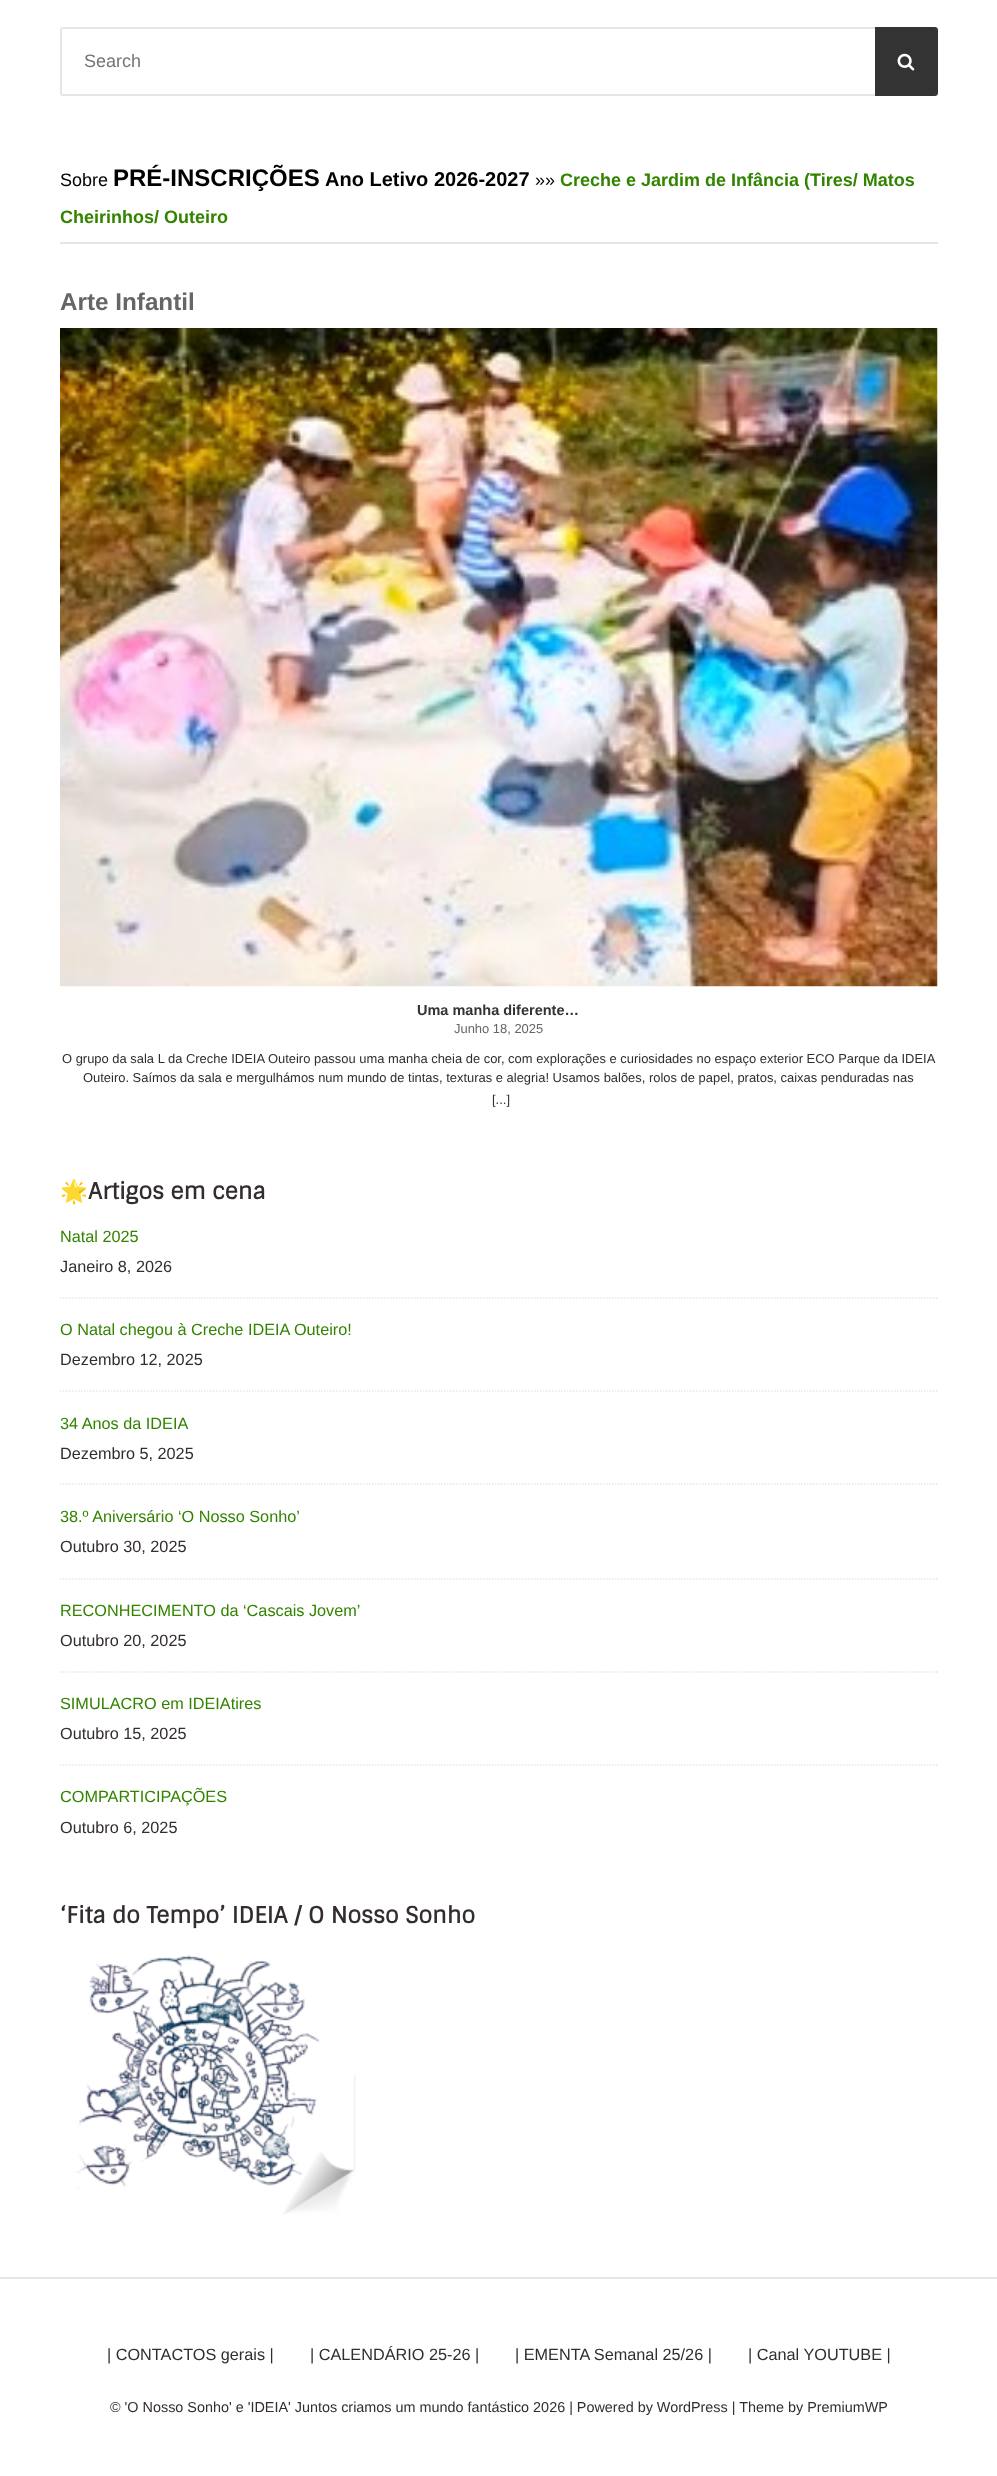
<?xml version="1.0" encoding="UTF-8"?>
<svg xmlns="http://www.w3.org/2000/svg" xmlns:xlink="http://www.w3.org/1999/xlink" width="997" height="2476">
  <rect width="100%" height="100%" fill="#ffffff" />
  <path d="M 63 28 h 874 v 67 h -874 c -1 0 -2 -1 -2 -2 v -63 c 0 -1 1 -2 2 -2 z" fill="none" stroke="#e6e6e6" stroke-width="2" />
  <path d="M 875 27 h 60 c 1.5 0 3 1.5 3 3 v 63 c 0 1.5 -1.5 3 -3 3 h -60 z" fill="#333333" />
  <image x="897" y="53" width="18" height="18" xlink:href="image1.png" />
  <rect x="60" y="242" width="878" height="2" fill="#e6e6e6" />
  <image x="60" y="328" width="878" height="659" xlink:href="image2.png" />
  <path d="M 60 1298 h 877.5" fill="none" stroke="#e6e6e6" stroke-width="1.5" stroke-dasharray="1.5 1.5" />
  <path d="M 60 1391 h 877.5" fill="none" stroke="#e6e6e6" stroke-width="1.5" stroke-dasharray="1.5 1.5" />
  <path d="M 60 1484 h 877.5" fill="none" stroke="#e6e6e6" stroke-width="1.5" stroke-dasharray="1.5 1.5" />
  <path d="M 60 1579 h 877.5" fill="none" stroke="#e6e6e6" stroke-width="1.5" stroke-dasharray="1.5 1.5" />
  <path d="M 60 1672 h 877.5" fill="none" stroke="#e6e6e6" stroke-width="1.5" stroke-dasharray="1.5 1.5" />
  <path d="M 60 1765 h 877.5" fill="none" stroke="#e6e6e6" stroke-width="1.5" stroke-dasharray="1.5 1.5" />
  <image x="76" y="1955" width="280" height="260" xlink:href="image3.png" />
  <rect y="2277" width="997" height="2" fill="#e6e6e6" />
  <text x="84" y="67" style="font-family: Liberation Sans; font-size: 18px; fill: #757575">Search</text>
  <text x="60" y="186" style="font-family: Liberation Sans; font-size: 18px; fill: #000000">Sobre</text>
  <text x="113" y="186" style="font-family: Liberation Sans; font-size: 24px; font-weight: bold; fill: #000000">PRÉ-INSCRIÇÕES</text>
  <text x="325" y="186" style="font-family: Liberation Sans; font-size: 20px; font-weight: bold; fill: #000000">Ano Letivo 2026-2027</text>
  <text x="535" y="186" style="font-family: Liberation Sans; font-size: 18px; fill: #000000">»»</text>
  <text x="560" y="186" style="font-family: Liberation Sans; font-size: 18px; font-weight: bold; fill: #328400">Creche e Jardim de Infância (Tires/ Matos</text>
  <text x="60" y="223" style="font-family: Liberation Sans; font-size: 18px; font-weight: bold; fill: #328400">Cheirinhos/ Outeiro</text>
  <text x="60" y="310" style="font-family: Liberation Sans; font-size: 24.25px; font-weight: bold; fill: #666666">Arte Infantil</text>
  <text x="417" y="1015" style="font-family: Liberation Sans; font-size: 14.5px; font-weight: bold; fill: #333333">Uma manha diferente…</text>
  <text x="454" y="1033" style="font-family: Liberation Sans; font-size: 12.95px; fill: #666666">Junho 18, 2025</text>
  <text x="62" y="1063" style="font-family: Liberation Sans; font-size: 12.95px; fill: #332d2d">O grupo da sala L da Creche IDEIA Outeiro passou uma manha cheia de cor, com explorações e curiosidades no espaço exterior ECO Parque da IDEIA</text>
  <text x="83" y="1082" style="font-family: Liberation Sans; font-size: 12.95px; fill: #332d2d">Outeiro. Saímos da sala e mergulhámos num mundo de tintas, texturas e alegria! Usamos balões, rolos de papel, pratos, caixas penduradas nas</text>
  <text x="492" y="1104" style="font-family: Liberation Sans; font-size: 12.95px; fill: #332d2d">[...]</text>
  <text x="60" y="1199" style="font-family: Noto Color Emoji; font-size: 22.5px; font-weight: bold; fill: #332d2d">🌟</text>
  <text x="88" y="1199" style="font-family: Sintony; font-size: 22.5px; font-weight: bold; fill: #332d2d">Artigos em cena</text>
  <text x="60" y="1242" style="font-family: Liberation Sans; font-size: 16.25px; fill: #328400">Natal 2025</text>
  <text x="60" y="1272" style="font-family: Liberation Sans; font-size: 16.25px; fill: #332d2d">Janeiro 8, 2026</text>
  <text x="60" y="1335" style="font-family: Liberation Sans; font-size: 16.25px; fill: #328400">O Natal chegou à Creche IDEIA Outeiro!</text>
  <text x="60" y="1365" style="font-family: Liberation Sans; font-size: 16.25px; fill: #332d2d">Dezembro 12, 2025</text>
  <text x="60" y="1429" style="font-family: Liberation Sans; font-size: 16.25px; fill: #328400">34 Anos da IDEIA</text>
  <text x="60" y="1459" style="font-family: Liberation Sans; font-size: 16.25px; fill: #332d2d">Dezembro 5, 2025</text>
  <text x="60" y="1522" style="font-family: Liberation Sans; font-size: 16.25px; fill: #328400">38.º Aniversário ‘O Nosso Sonho’</text>
  <text x="60" y="1552" style="font-family: Liberation Sans; font-size: 16.25px; fill: #332d2d">Outubro 30, 2025</text>
  <text x="60" y="1616" style="font-family: Liberation Sans; font-size: 16.25px; fill: #328400">RECONHECIMENTO da ‘Cascais Jovem’</text>
  <text x="60" y="1646" style="font-family: Liberation Sans; font-size: 16.25px; fill: #332d2d">Outubro 20, 2025</text>
  <text x="60" y="1709" style="font-family: Liberation Sans; font-size: 16.25px; fill: #328400">SIMULACRO em IDEIAtires</text>
  <text x="60" y="1739" style="font-family: Liberation Sans; font-size: 16.25px; fill: #332d2d">Outubro 15, 2025</text>
  <text x="60" y="1802" style="font-family: Liberation Sans; font-size: 16.25px; fill: #328400">COMPARTICIPAÇÕES</text>
  <text x="60" y="1833" style="font-family: Liberation Sans; font-size: 16.25px; fill: #332d2d">Outubro 6, 2025</text>
  <text x="60" y="1923" style="font-family: Sintony; font-size: 22.5px; font-weight: bold; fill: #332d2d">‘Fita do Tempo’ IDEIA / O Nosso Sonho</text>
  <text x="107" y="2360" style="font-family: Liberation Sans; font-size: 16.25px; fill: #332d2d">| CONTACTOS gerais |</text>
  <text x="310" y="2360" style="font-family: Liberation Sans; font-size: 16.25px; fill: #332d2d">| CALENDÁRIO 25-26 |</text>
  <text x="515" y="2360" style="font-family: Liberation Sans; font-size: 16.25px; fill: #332d2d">| EMENTA Semanal 25/26 |</text>
  <text x="748" y="2360" style="font-family: Liberation Sans; font-size: 16.25px; fill: #332d2d">| Canal YOUTUBE |</text>
  <text x="110" y="2412" style="font-family: Liberation Sans; font-size: 14.4px; fill: #332d2d">© 'O Nosso Sonho' e 'IDEIA' Juntos criamos um mundo fantástico 2026 | Powered by WordPress | Theme by PremiumWP</text>
</svg>
